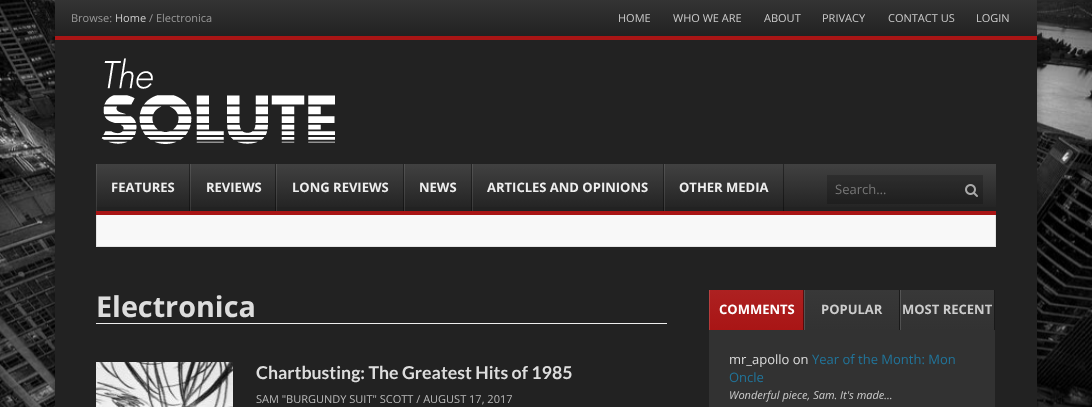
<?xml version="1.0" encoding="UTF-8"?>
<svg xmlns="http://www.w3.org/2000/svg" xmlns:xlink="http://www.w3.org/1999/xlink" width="1092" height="407">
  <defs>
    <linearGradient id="g1" gradientUnits="userSpaceOnUse" x1="546" y1="0" x2="546" y2="36"><stop offset="0" stop-color="#343434" /><stop offset="1" stop-color="#222222" /></linearGradient>
    <linearGradient id="g2" gradientUnits="userSpaceOnUse" x1="546" y1="164" x2="546" y2="211"><stop offset="0" stop-color="#414141" /><stop offset="1" stop-color="#222222" /></linearGradient>
    <linearGradient id="g3" gradientUnits="userSpaceOnUse" x1="757" y1="290" x2="757" y2="330"><stop offset="0" stop-color="#ad2121" /><stop offset="1" stop-color="#a91515" /></linearGradient>
    <linearGradient id="g4" gradientUnits="userSpaceOnUse" x1="852" y1="290" x2="852" y2="330"><stop offset="0" stop-color="#383838" /><stop offset="1" stop-color="#323232" /></linearGradient>
    <linearGradient id="g5" gradientUnits="userSpaceOnUse" x1="948" y1="290" x2="948" y2="330"><stop offset="0" stop-color="#383838" /><stop offset="1" stop-color="#323232" /></linearGradient>
  </defs>
  <rect width="100%" height="100%" fill="#ffffff" />
  <image x="0" y="0" width="1092" height="407" xlink:href="image1.png" />
  <rect x="55" width="982" height="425" fill="#000000" fill-opacity="0.4" filter="blur(6px)" />
  <rect x="55" width="982" height="36" fill="url(#g1)" />
  <rect x="55" y="36" width="982" height="4" fill="#a91515" />
  <rect x="55" y="40" width="982" height="367" fill="#222222" />
  <image x="101" y="58" width="234" height="86" xlink:href="image2.png" />
  <rect x="96" y="164" width="900" height="43" fill="url(#g2)" />
  <rect x="96" y="211" width="900" height="4" fill="#a91515" />
  <rect x="189" y="164" width="1" height="47" fill="#000000" fill-opacity="0.4" />
  <rect x="96" y="164" width="1" height="47" fill="#ffffff" fill-opacity="0.1" />
  <rect x="275" y="164" width="1" height="47" fill="#000000" fill-opacity="0.4" />
  <rect x="190" y="164" width="1" height="47" fill="#ffffff" fill-opacity="0.1" />
  <rect x="403" y="164" width="1" height="47" fill="#000000" fill-opacity="0.4" />
  <rect x="276" y="164" width="1" height="47" fill="#ffffff" fill-opacity="0.1" />
  <rect x="471" y="164" width="1" height="47" fill="#000000" fill-opacity="0.4" />
  <rect x="404" y="164" width="1" height="47" fill="#ffffff" fill-opacity="0.1" />
  <rect x="663" y="164" width="1" height="47" fill="#000000" fill-opacity="0.4" />
  <rect x="472" y="164" width="1" height="47" fill="#ffffff" fill-opacity="0.1" />
  <rect x="783" y="164" width="1" height="47" fill="#000000" fill-opacity="0.4" />
  <rect x="664" y="164" width="1" height="47" fill="#ffffff" fill-opacity="0.1" />
  <rect x="827" y="175" width="156" height="29" fill="#000000" fill-opacity="0.2" />
  <image x="965" y="184" width="13" height="13" xlink:href="image3.png" />
  <rect x="97" y="215" width="898" height="31" fill="#f8f8f8" />
  <rect x="995" y="215" width="1" height="32" fill="#e4e4e4" />
  <rect x="96" y="246" width="900" height="1" fill="#e4e4e4" />
  <rect x="96" y="215" width="1" height="32" fill="#e4e4e4" />
  <rect x="96" y="323" width="571" height="1" fill="#eeeeee" />
  <image x="96" y="362" width="137" height="45" xlink:href="image4.png" />
  <rect x="709" y="330" width="286" height="77" fill="#323232" />
  <rect x="709" y="290" width="95" height="40" fill="url(#g3)" />
  <rect x="803" y="290" width="1" height="40" fill="#000000" fill-opacity="0.5" />
  <rect x="709" y="290" width="1" height="40" fill="#ffffff" fill-opacity="0.15" />
  <rect x="804" y="290" width="96" height="40" fill="url(#g4)" />
  <rect x="899" y="290" width="1" height="40" fill="#000000" fill-opacity="0.5" />
  <rect x="804" y="290" width="1" height="40" fill="#ffffff" fill-opacity="0.15" />
  <rect x="900" y="290" width="95" height="40" fill="url(#g5)" />
  <rect x="994" y="290" width="1" height="40" fill="#000000" fill-opacity="0.5" />
  <rect x="900" y="290" width="1" height="40" fill="#ffffff" fill-opacity="0.15" />
  <text x="71" y="22" style="font-family: Open Sans; font-size: 11px; fill: #999999">Browse:</text>
  <text x="115" y="22" style="font-family: Open Sans; font-size: 11px; fill: #cccccc">Home</text>
  <text x="149" y="22" style="font-family: Open Sans; font-size: 11px; fill: #999999">/ Electronica</text>
  <text x="618" y="22" style="font-family: Open Sans; font-size: 11px; fill: #cccccc">HOME</text>
  <text x="673" y="22" style="font-family: Open Sans; font-size: 11px; fill: #cccccc">WHO WE ARE</text>
  <text x="764" y="22" style="font-family: Open Sans; font-size: 11px; fill: #cccccc">ABOUT</text>
  <text x="822" y="22" style="font-family: Open Sans; font-size: 11px; fill: #cccccc">PRIVACY</text>
  <text x="888" y="22" style="font-family: Open Sans; font-size: 11px; fill: #cccccc">CONTACT US</text>
  <text x="976" y="22" style="font-family: Open Sans; font-size: 11px; fill: #cccccc">LOGIN</text>
  <text x="111" y="192" style="font-family: Open Sans; font-size: 13px; font-weight: bold; fill: #eeeeee">FEATURES</text>
  <text x="206" y="192" style="font-family: Open Sans; font-size: 13px; font-weight: bold; fill: #eeeeee">REVIEWS</text>
  <text x="292" y="192" style="font-family: Open Sans; font-size: 13px; font-weight: bold; fill: #eeeeee">LONG REVIEWS</text>
  <text x="419" y="192" style="font-family: Open Sans; font-size: 13px; font-weight: bold; fill: #eeeeee">NEWS</text>
  <text x="487" y="192" style="font-family: Open Sans; font-size: 13px; font-weight: bold; fill: #eeeeee">ARTICLES AND OPINIONS</text>
  <text x="679" y="192" style="font-family: Open Sans; font-size: 13px; font-weight: bold; fill: #eeeeee">OTHER MEDIA</text>
  <text x="835" y="194" style="font-family: Open Sans; font-size: 13px; fill: #777777">Search…</text>
  <text x="96" y="317" style="font-family: Open Sans; font-size: 28.75px; font-weight: bold; fill: #dddddd">Electronica</text>
  <text x="256" y="379" style="font-family: Lato; font-size: 17.75px; font-weight: bold; fill: #dddddd">Chartbusting: The Greatest Hits of 1985</text>
  <text x="256" y="403" style="font-family: Open Sans; font-size: 11px; fill: #bbbbbb">SAM "BURGUNDY SUIT" SCOTT / AUGUST 17, 2017</text>
  <text x="719" y="314" style="font-family: Open Sans; font-size: 13px; font-weight: bold; fill: #ffffff">COMMENTS</text>
  <text x="821" y="314" style="font-family: Open Sans; font-size: 13px; font-weight: bold; fill: #cccccc">POPULAR</text>
  <text x="902" y="314" style="font-family: Open Sans; font-size: 13px; font-weight: bold; fill: #cccccc">MOST RECENT</text>
  <text x="729" y="364" style="font-family: Open Sans; font-size: 13px; fill: #dddddd">mr_apollo on</text>
  <text x="812" y="364" style="font-family: Open Sans; font-size: 13px; fill: #21759b">Year of the Month: Mon</text>
  <text x="729" y="382" style="font-family: Open Sans; font-size: 13px; fill: #21759b">Oncle</text>
  <text x="729" y="399" style="font-family: Open Sans; font-size: 11px; font-style: italic; fill: #cccccc">Wonderful piece, Sam. It's made…</text>
</svg>
